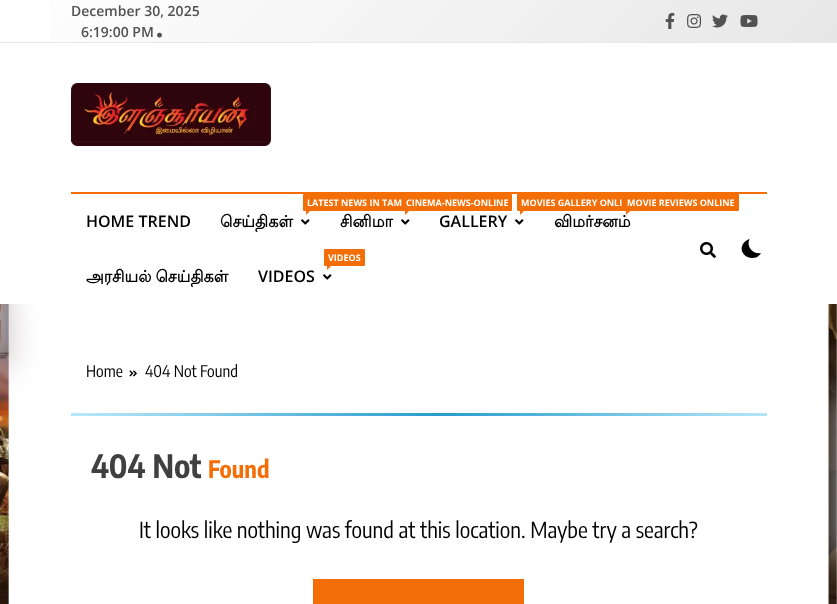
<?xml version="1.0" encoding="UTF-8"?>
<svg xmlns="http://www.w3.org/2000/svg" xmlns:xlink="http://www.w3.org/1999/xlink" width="837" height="604">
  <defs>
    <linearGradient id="g1" gradientUnits="userSpaceOnUse" x1="199" y1="-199" x2="638" y2="241"><stop offset="0" stop-color="#ffffff" /><stop offset="1" stop-color="#e7e7e7" /></linearGradient>
    <linearGradient id="g2" gradientUnits="userSpaceOnUse" x1="244" y1="240" x2="594" y2="589"><stop offset="0.02" stop-color="#b6e6f9" /><stop offset="0.53" stop-color="#289dcc" /><stop offset="1" stop-color="#b6e6f9" /></linearGradient>
  </defs>
  <rect width="100%" height="100%" fill="#ffffff" />
  <image x="0" y="304" width="837" height="300" xlink:href="image1.png" />
  <rect x="50" width="787" height="42" fill="url(#g1)" />
  <rect y="42" width="837" height="1" fill="#e8e8e8" />
  <image x="157" y="32" width="5" height="6" xlink:href="image2.png" />
  <image x="665" y="13" width="10" height="16" xlink:href="image3.png" />
  <image x="687" y="14" width="15" height="14" xlink:href="image4.png" />
  <image x="712" y="14" width="16" height="14" xlink:href="image5.png" />
  <image x="740" y="15" width="18" height="12" xlink:href="image6.png" />
  <image x="71" y="83" width="200" height="63" xlink:href="image7.png" />
  <rect x="71" y="192" width="696" height="2" fill="#f46e07" />
  <rect x="303" y="194" width="148" height="17" rx="1" fill="#f46e07" />
  <path d="M 306 210 h 5 l -5 5 z" fill="#f46e07" />
  <image x="301" y="219" width="9" height="6" xlink:href="image8.png" />
  <rect x="402" y="194" width="110" height="17" rx="1" fill="#f46e07" />
  <path d="M 405 210 h 5 l -5 5 z" fill="#f46e07" />
  <image x="401" y="219" width="9" height="6" xlink:href="image8.png" />
  <rect x="517" y="194" width="121" height="17" rx="1" fill="#f46e07" />
  <path d="M 520 210 h 5 l -5 5 z" fill="#f46e07" />
  <image x="515" y="219" width="9" height="6" xlink:href="image8.png" />
  <rect x="623" y="194" width="116" height="17" rx="1" fill="#f46e07" />
  <rect x="324" y="249" width="41" height="17" rx="1" fill="#f46e07" />
  <path d="M 327 265 h 5 l -5 5 z" fill="#f46e07" />
  <image x="323" y="274" width="9" height="6" xlink:href="image8.png" />
  <path d="M 761 253 c -8 1.5 -15 -6 -11.5 -14 c -2.5 1 -5 2.5 -6.5 5 c -6.5 11.5 12 20 18 9 z" fill="#000000" />
  <image x="700" y="242" width="16" height="16" xlink:href="image9.png" />
  <image x="129" y="370" width="8" height="7" xlink:href="image10.png" />
  <rect x="71" y="413" width="696" height="3" fill="url(#g2)" />
  <rect x="313" y="579" width="211" height="25" fill="#f46e07" />
  <text x="71" y="16" style="font-family: Open Sans; font-size: 14px; font-weight: 600; fill: #525252">December 30, 2025</text>
  <text x="81" y="37" style="font-family: Open Sans; font-size: 14px; font-weight: 600; fill: #525252">6:19:00 PM</text>
  <text x="86" y="227" style="font-family: Open Sans; font-size: 16px; font-weight: 600; fill: #000000">HOME TREND</text>
  <text x="307" y="206" style="font-family: Open Sans; font-size: 9px; font-weight: bold; fill: #ffffff">LATEST NEWS IN TAM</text>
  <text x="220" y="227" style="font-family: Lohit Tamil; font-size: 16px; font-weight: bold; fill: #000000">செய்திகள்</text>
  <text x="406" y="206" style="font-family: Open Sans; font-size: 9px; font-weight: bold; fill: #ffffff">CINEMA-NEWS-ONLINE</text>
  <text x="340" y="227" style="font-family: Lohit Tamil; font-size: 16px; font-weight: bold; fill: #000000">சினிமா</text>
  <text x="521" y="206" style="font-family: Open Sans; font-size: 9px; font-weight: bold; fill: #ffffff">MOVIES GALLERY ONLI</text>
  <text x="439" y="227" style="font-family: Open Sans; font-size: 16px; font-weight: 600; fill: #000000">GALLERY</text>
  <text x="627" y="206" style="font-family: Open Sans; font-size: 9px; font-weight: bold; fill: #ffffff">MOVIE REVIEWS ONLINE</text>
  <text x="554" y="227" style="font-family: Lohit Tamil; font-size: 16px; font-weight: bold; fill: #000000">விமர்சனம்</text>
  <path d="M 626 210 h 5 l -5 5 z" fill="#f46e07" />
  <text x="86" y="282" word-spacing="-1" style="font-family: Lohit Tamil; font-size: 16px; font-weight: bold; fill: #000000">அரசியல் செய்திகள்</text>
  <text x="328" y="261" style="font-family: Open Sans; font-size: 9px; font-weight: bold; fill: #ffffff">VIDEOS</text>
  <text x="258" y="282" style="font-family: Open Sans; font-size: 16px; font-weight: 600; fill: #000000">VIDEOS</text>
  <text x="86" y="377" style="font-family: Encode Sans Condensed; font-size: 16px; fill: #000000">Home</text>
  <text x="145" y="377" style="font-family: Encode Sans Condensed; font-size: 16px; fill: #000000">404 Not Found</text>
  <text x="91" y="478" style="font-family: Encode Sans Condensed; font-size: 32px; font-weight: bold; fill: #404040">404 Not</text>
  <text x="208" y="478" style="font-family: Encode Sans Condensed; font-size: 24px; font-weight: bold; fill: #f46e07">Found</text>
  <text x="139" y="538" style="font-family: Encode Sans Condensed; font-size: 22px; fill: #000000">It looks like nothing was found at this location. Maybe try a search?</text>
</svg>
